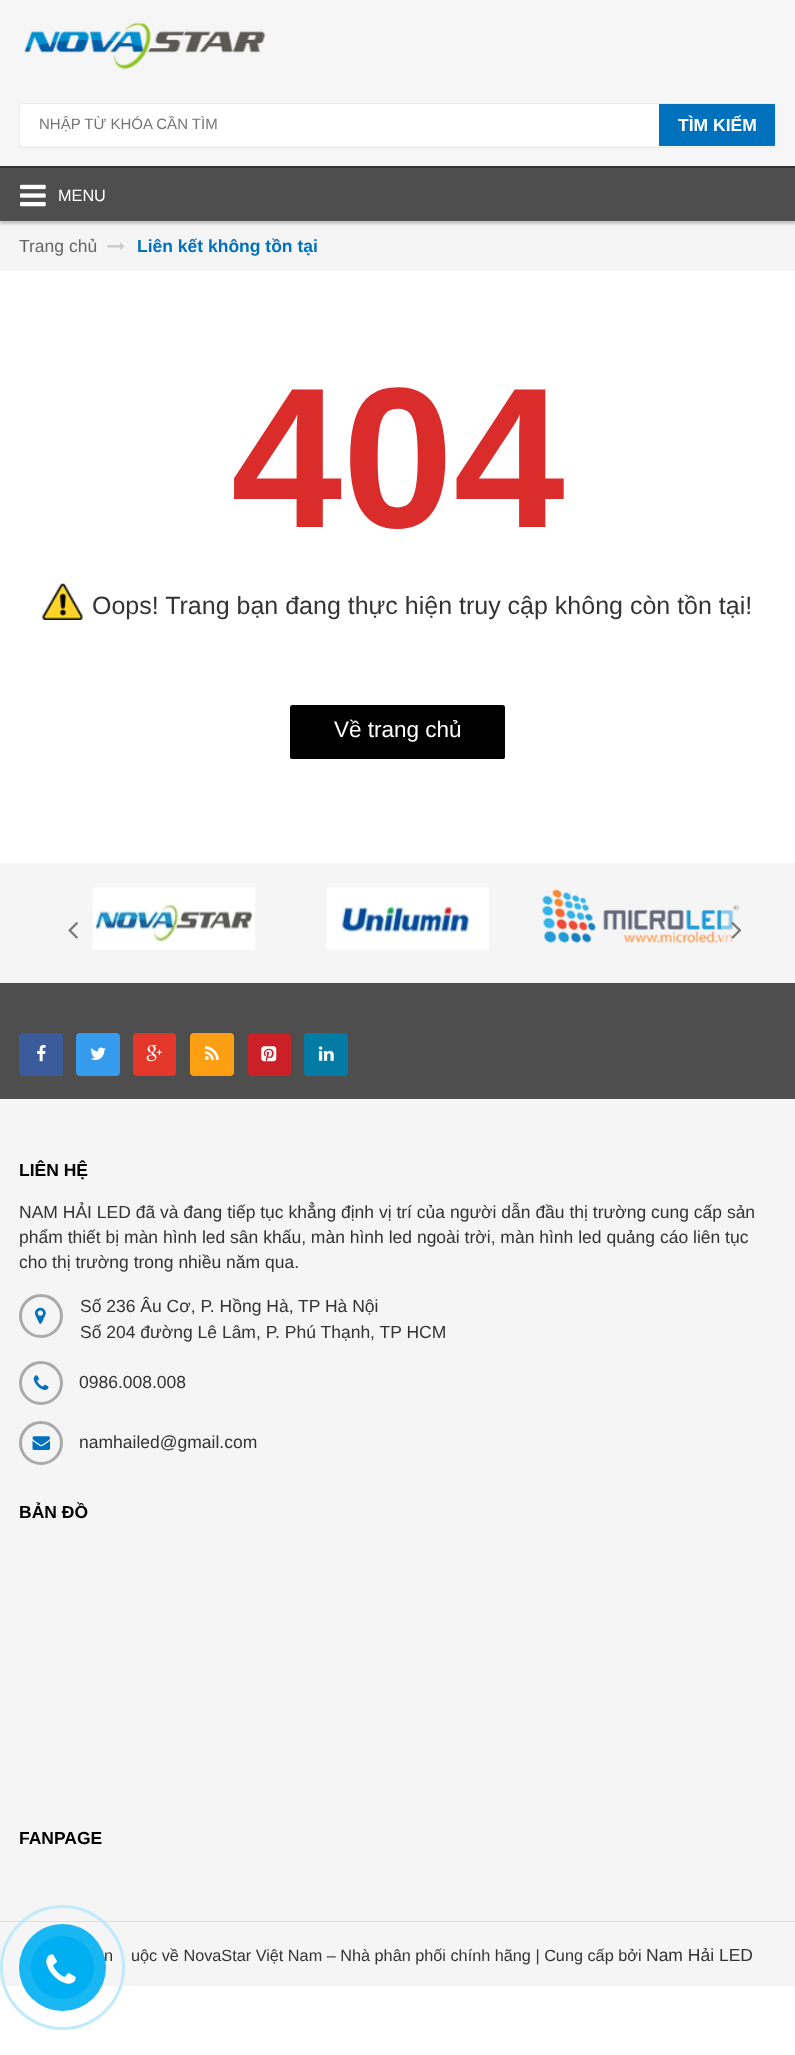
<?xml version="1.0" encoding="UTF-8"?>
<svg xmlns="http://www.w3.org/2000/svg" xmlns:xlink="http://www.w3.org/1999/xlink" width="795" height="2055">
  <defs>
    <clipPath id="clip1"><rect x="39" y="116" width="717" height="18" /></clipPath>
  </defs>
  <rect width="100%" height="100%" fill="#ffffff" />
  <rect width="795" height="166" fill="#f6f6f6" />
  <image x="24" y="22" width="242" height="48" xlink:href="image1.png" />
  <rect x="19.5" y="103.5" width="756" height="44" rx="2" fill="none" stroke="#ebebeb" />
  <rect x="20" y="104" width="755" height="42" rx="2.5" fill="#ffffff" />
  <path d="M 659 104 h 115 c 0.5 0 1 0.5 1 1 v 40 c 0 0.5 -0.5 1 -1 1 h -115 z" fill="#0071bc" />
  <rect y="221" width="795" height="50" fill="#f5f5f5" />
  <rect y="169" width="795" height="55" fill="#000000" fill-opacity="0.2" filter="blur(1px)" />
  <rect y="166" width="795" height="2" fill="#333333" />
  <rect y="168" width="795" height="53" fill="#4e4e4e" />
  <image x="20" y="184" width="26" height="23" xlink:href="image2.png" />
  <image x="107" y="242" width="18" height="8" xlink:href="image3.png" />
  <image x="42" y="583" width="41" height="37" xlink:href="image4.png" />
  <rect x="290" y="705" width="215" height="54" rx="2.5" fill="#000000" />
  <path d="M 290 751 v 5 c 0 2 1 3 2 3 h 210 c 2 0 3 -1 3 -3 v -5 c 0 2 -1 3 -3 3 h -210 c -1 0 -2 -1 -2 -3 z" fill="#000000" />
  <rect y="863" width="795" height="1123" fill="#f5f5f5" />
  <image x="92" y="887" width="163" height="63" xlink:href="image5.png" />
  <image x="326" y="887" width="163" height="63" xlink:href="image6.png" />
  <image x="542" y="889" width="198" height="54" xlink:href="image7.png" />
  <image x="68" y="922" width="10" height="17" xlink:href="image8.png" />
  <rect x="721" y="909" width="19" height="34" fill="#f5f5f5" fill-opacity="0.5" />
  <image x="731" y="922" width="11" height="17" xlink:href="image9.png" />
  <rect y="983" width="795" height="116" fill="#4e4e4e" />
  <rect x="19" y="1033" width="44" height="43" rx="4" fill="#3c5b9b" />
  <image x="37" y="1045" width="9" height="17" xlink:href="image10.png" />
  <rect x="76" y="1033" width="44" height="43" rx="4" fill="#359bed" />
  <image x="90" y="1047" width="16" height="13" xlink:href="image11.png" />
  <rect x="133" y="1033" width="43" height="43" rx="4" fill="#e33729" />
  <image x="146" y="1045" width="16" height="17" xlink:href="image12.png" />
  <rect x="190" y="1033" width="44" height="43" rx="4" fill="#fd9f13" />
  <image x="205" y="1046" width="14" height="14" xlink:href="image13.png" />
  <rect x="248" y="1033" width="43" height="43" rx="4" fill="#cb2027" />
  <image x="261" y="1046" width="16" height="16" xlink:href="image14.png" />
  <rect x="304" y="1033" width="44" height="43" rx="4" fill="#027ba5" />
  <image x="318" y="1046" width="16" height="15" xlink:href="image15.png" />
  <circle cx="41" cy="1316" r="20.5" fill="none" stroke="#aaaaaa" stroke-width="3" />
  <image x="35" y="1307" width="11" height="17" xlink:href="image16.png" />
  <circle cx="41" cy="1383" r="20.5" fill="none" stroke="#aaaaaa" stroke-width="3" />
  <image x="33" y="1375" width="16" height="15" xlink:href="image17.png" />
  <circle cx="41" cy="1443" r="20.5" fill="none" stroke="#aaaaaa" stroke-width="3" />
  <image x="32" y="1436" width="18" height="14" xlink:href="image18.png" />
  <rect y="1921" width="795" height="1" fill="#dddddd" />
  <g clip-path="url(#clip1)">
    <text x="39" y="129" style="font-family: Liberation Sans; font-size: 15px; fill: #757575">NHẬP TỪ KHÓA CẦN TÌM</text>
  </g>
  <text x="678" y="131" style="font-family: Liberation Sans; font-size: 17.5px; font-weight: bold; fill: #ffffff">TÌM KIẾM</text>
  <text x="58" y="201" style="font-family: Liberation Sans; font-size: 16.25px; fill: #ffffff">MENU</text>
  <text x="19" y="252" style="font-family: Liberation Sans; font-size: 17.5px; fill: #666666">Trang chủ</text>
  <text x="137" y="252" style="font-family: Liberation Sans; font-size: 17.5px; font-weight: bold; fill: #0071bc">Liên kết không tồn tại</text>
  <text x="231" y="527" style="font-family: Liberation Sans; font-size: 200px; font-weight: bold; fill: #da2c2a">404</text>
  <text x="92" y="614" style="font-family: Liberation Sans; font-size: 25px; fill: #333333">Oops! Trang bạn đang thực hiện truy cập không còn tồn tại!</text>
  <text x="334" y="737" style="font-family: Liberation Sans; font-size: 22.5px; fill: #ffffff">Về trang chủ</text>
  <text x="19" y="1176" style="font-family: Liberation Sans; font-size: 17.5px; font-weight: bold; fill: #000000">LIÊN HỆ</text>
  <text x="19" y="1218" style="font-family: Liberation Sans; font-size: 17.5px; fill: #333333">NAM HẢI LED đã và đang tiếp tục khẳng định vị trí của người dẫn đầu thị trường cung cấp sản</text>
  <text x="19" y="1243" style="font-family: Liberation Sans; font-size: 17.5px; fill: #333333">phẩm thiết bị màn hình led sân khấu, màn hình led ngoài trời, màn hình led quảng cáo liên tục</text>
  <text x="19" y="1268" style="font-family: Liberation Sans; font-size: 17.5px; fill: #333333">cho thị trường trong nhiều năm qua.</text>
  <text x="80" y="1312" style="font-family: Liberation Sans; font-size: 17.5px; fill: #333333">Số 236 Âu Cơ, P. Hồng Hà, TP Hà Nội</text>
  <text x="80" y="1338" style="font-family: Liberation Sans; font-size: 17.5px; fill: #333333">Số 204 đường Lê Lâm, P. Phú Thạnh, TP HCM</text>
  <text x="79" y="1388" style="font-family: Liberation Sans; font-size: 17.5px; fill: #333333">0986.008.008</text>
  <text x="79" y="1448" style="font-family: Liberation Sans; font-size: 17.5px; fill: #333333">namhailed@gmail.com</text>
  <text x="19" y="1518" style="font-family: Liberation Sans; font-size: 17.5px; font-weight: bold; fill: #000000">BẢN ĐỒ</text>
  <text x="19" y="1844" style="font-family: Liberation Sans; font-size: 17.5px; font-weight: bold; fill: #000000">FANPAGE</text>
  <text x="104" y="1961" style="font-family: Liberation Sans; font-size: 16.25px; fill: #333333">n</text>
  <text x="131" y="1961" style="font-family: Liberation Sans; font-size: 16.25px; fill: #333333">uộc về NovaStar Việt Nam – Nhà phân phối chính hãng | Cung cấp bởi</text>
  <text x="646" y="1961" style="font-family: Liberation Sans; font-size: 17.5px; fill: #333333">Nam Hải LED</text>
  <circle cx="62.5" cy="1967.5" r="61" fill="none" stroke="#bfebfc" stroke-width="3" />
  <circle cx="62.5" cy="1967.5" r="43.5" fill="#00aff2" fill-opacity="0.9" />
  <circle cx="62.5" cy="1967.5" r="31.5" fill="#00aff2" />
  <image x="46" y="1954" width="30" height="30" xlink:href="image19.png" />
</svg>
